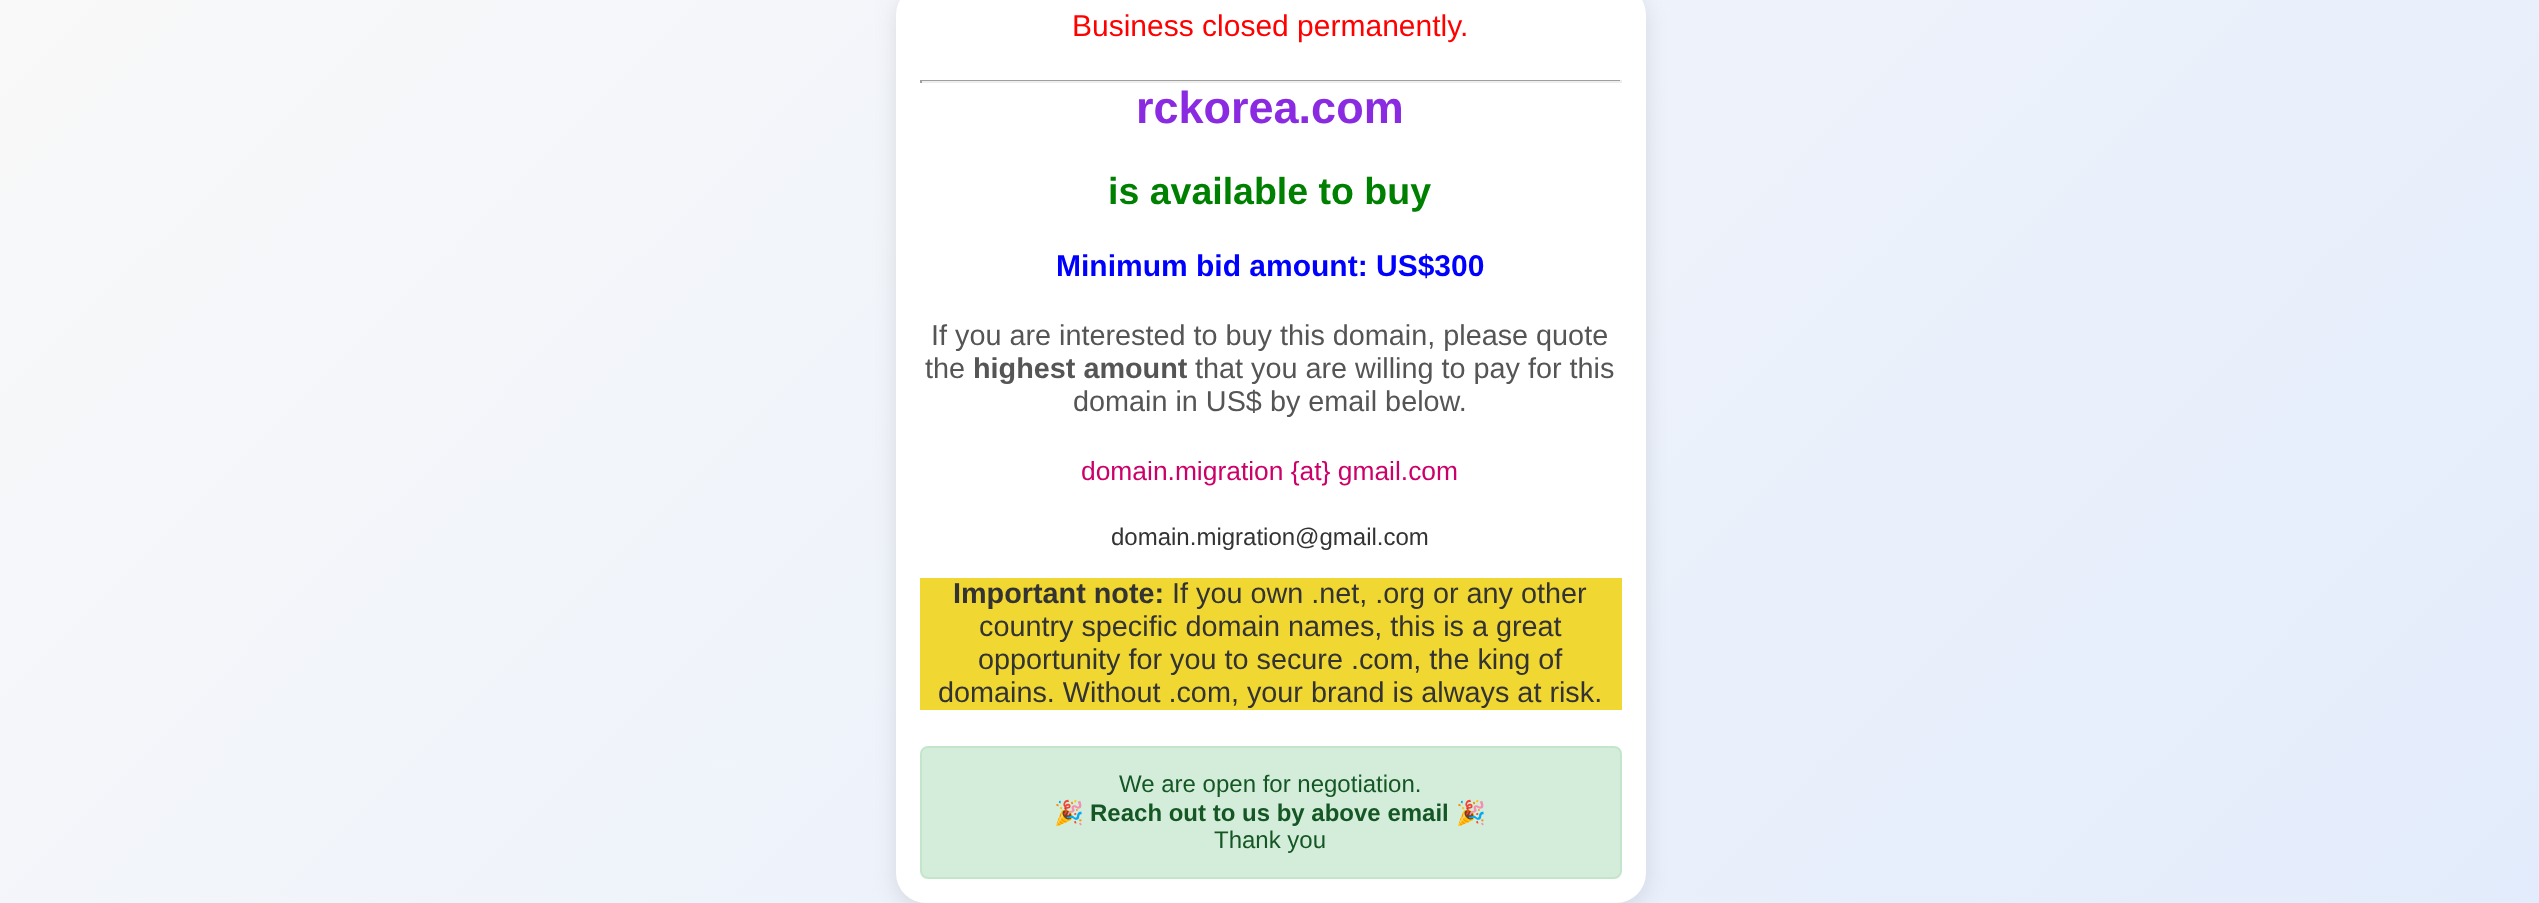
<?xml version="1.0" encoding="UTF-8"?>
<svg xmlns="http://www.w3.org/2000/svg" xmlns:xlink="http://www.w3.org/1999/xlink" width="2539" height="903">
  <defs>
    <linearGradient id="g1" gradientUnits="userSpaceOnUse" x1="405" y1="-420" x2="2134" y2="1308"><stop offset="0" stop-color="#f9f9f9" /><stop offset="1" stop-color="#e3ecfc" /></linearGradient>
  </defs>
  <rect width="100%" height="100%" fill="#ffffff" />
  <rect width="2539" height="903" fill="url(#g1)" />
  <rect x="896" y="-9" width="750" height="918" rx="30" fill="#000000" fill-opacity="0.1" filter="blur(11px)" />
  <rect x="896" y="-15" width="750" height="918" rx="30" fill="#ffffff" />
  <rect x="920" y="80" width="702" height="1" fill="#9f9f9f" />
  <rect x="1620" y="80" width="2" height="3" fill="#eeeeee" />
  <rect x="920" y="81" width="702" height="2" fill="#eeeeee" />
  <rect x="920" y="80" width="2" height="3" fill="#9f9f9f" />
  <rect x="920" y="578" width="702" height="132" fill="#f0d732" />
  <rect x="921" y="747" width="700" height="131" rx="7" fill="#d4edda" stroke="#c3e6cb" stroke-width="2" />
  <text x="1072" y="36" style="font-family: Liberation Sans; font-size: 30px; fill: #ff0000">Business closed permanently.</text>
  <text x="1136" y="123" style="font-family: Liberation Sans; font-size: 45px; font-weight: bold; fill: #8a2be2">rckorea.com</text>
  <text x="1108" y="204" style="font-family: Liberation Sans; font-size: 37.5px; font-weight: bold; fill: #008000">is available to buy</text>
  <text x="1056" y="276" style="font-family: Liberation Sans; font-size: 30px; font-weight: bold; fill: #0000ff">Minimum bid amount: US$300</text>
  <text x="931" y="345" style="font-family: Liberation Sans; font-size: 28.8px; fill: #555555">If you are interested to buy this domain, please quote</text>
  <text x="925" y="378" style="font-family: Liberation Sans; font-size: 28.8px; fill: #555555">the</text>
  <text x="973" y="378" style="font-family: Liberation Sans; font-size: 28.8px; font-weight: bold; fill: #555555">highest amount</text>
  <text x="1195" y="378" style="font-family: Liberation Sans; font-size: 28.8px; fill: #555555">that you are willing to pay for this</text>
  <text x="1073" y="411" style="font-family: Liberation Sans; font-size: 28.8px; fill: #555555">domain in US$ by email below.</text>
  <text x="1081" y="480" style="font-family: Liberation Sans; font-size: 26.4px; fill: #cc0069">domain.migration {at} gmail.com</text>
  <text x="1111" y="545" style="font-family: Liberation Sans; font-size: 24px; fill: #333333">domain.migration@gmail.com</text>
  <text x="953" y="603" style="font-family: Liberation Sans; font-size: 28.8px; font-weight: bold; fill: #333333">Important note:</text>
  <text x="1172" y="603" style="font-family: Liberation Sans; font-size: 28.8px; fill: #333333">If you own .net, .org or any other</text>
  <text x="979" y="636" style="font-family: Liberation Sans; font-size: 28.8px; fill: #333333">country specific domain names, this is a great</text>
  <text x="978" y="669" style="font-family: Liberation Sans; font-size: 28.8px; fill: #333333">opportunity for you to secure .com, the king of</text>
  <text x="938" y="702" style="font-family: Liberation Sans; font-size: 28.8px; fill: #333333">domains. Without .com, your brand is always at risk.</text>
  <text x="1119" y="792" style="font-family: Liberation Sans; font-size: 24px; fill: #155724">We are open for negotiation.</text>
  <text x="1054" y="821" style="font-family: Noto Color Emoji; font-size: 24px; fill: #155724">🎉</text>
  <text x="1090" y="821" style="font-family: Liberation Sans; font-size: 24px; font-weight: bold; fill: #155724">Reach out to us by above email</text>
  <text x="1456" y="821" style="font-family: Noto Color Emoji; font-size: 24px; fill: #155724">🎉</text>
  <text x="1214" y="848" style="font-family: Liberation Sans; font-size: 24px; fill: #155724">Thank you</text>
</svg>
